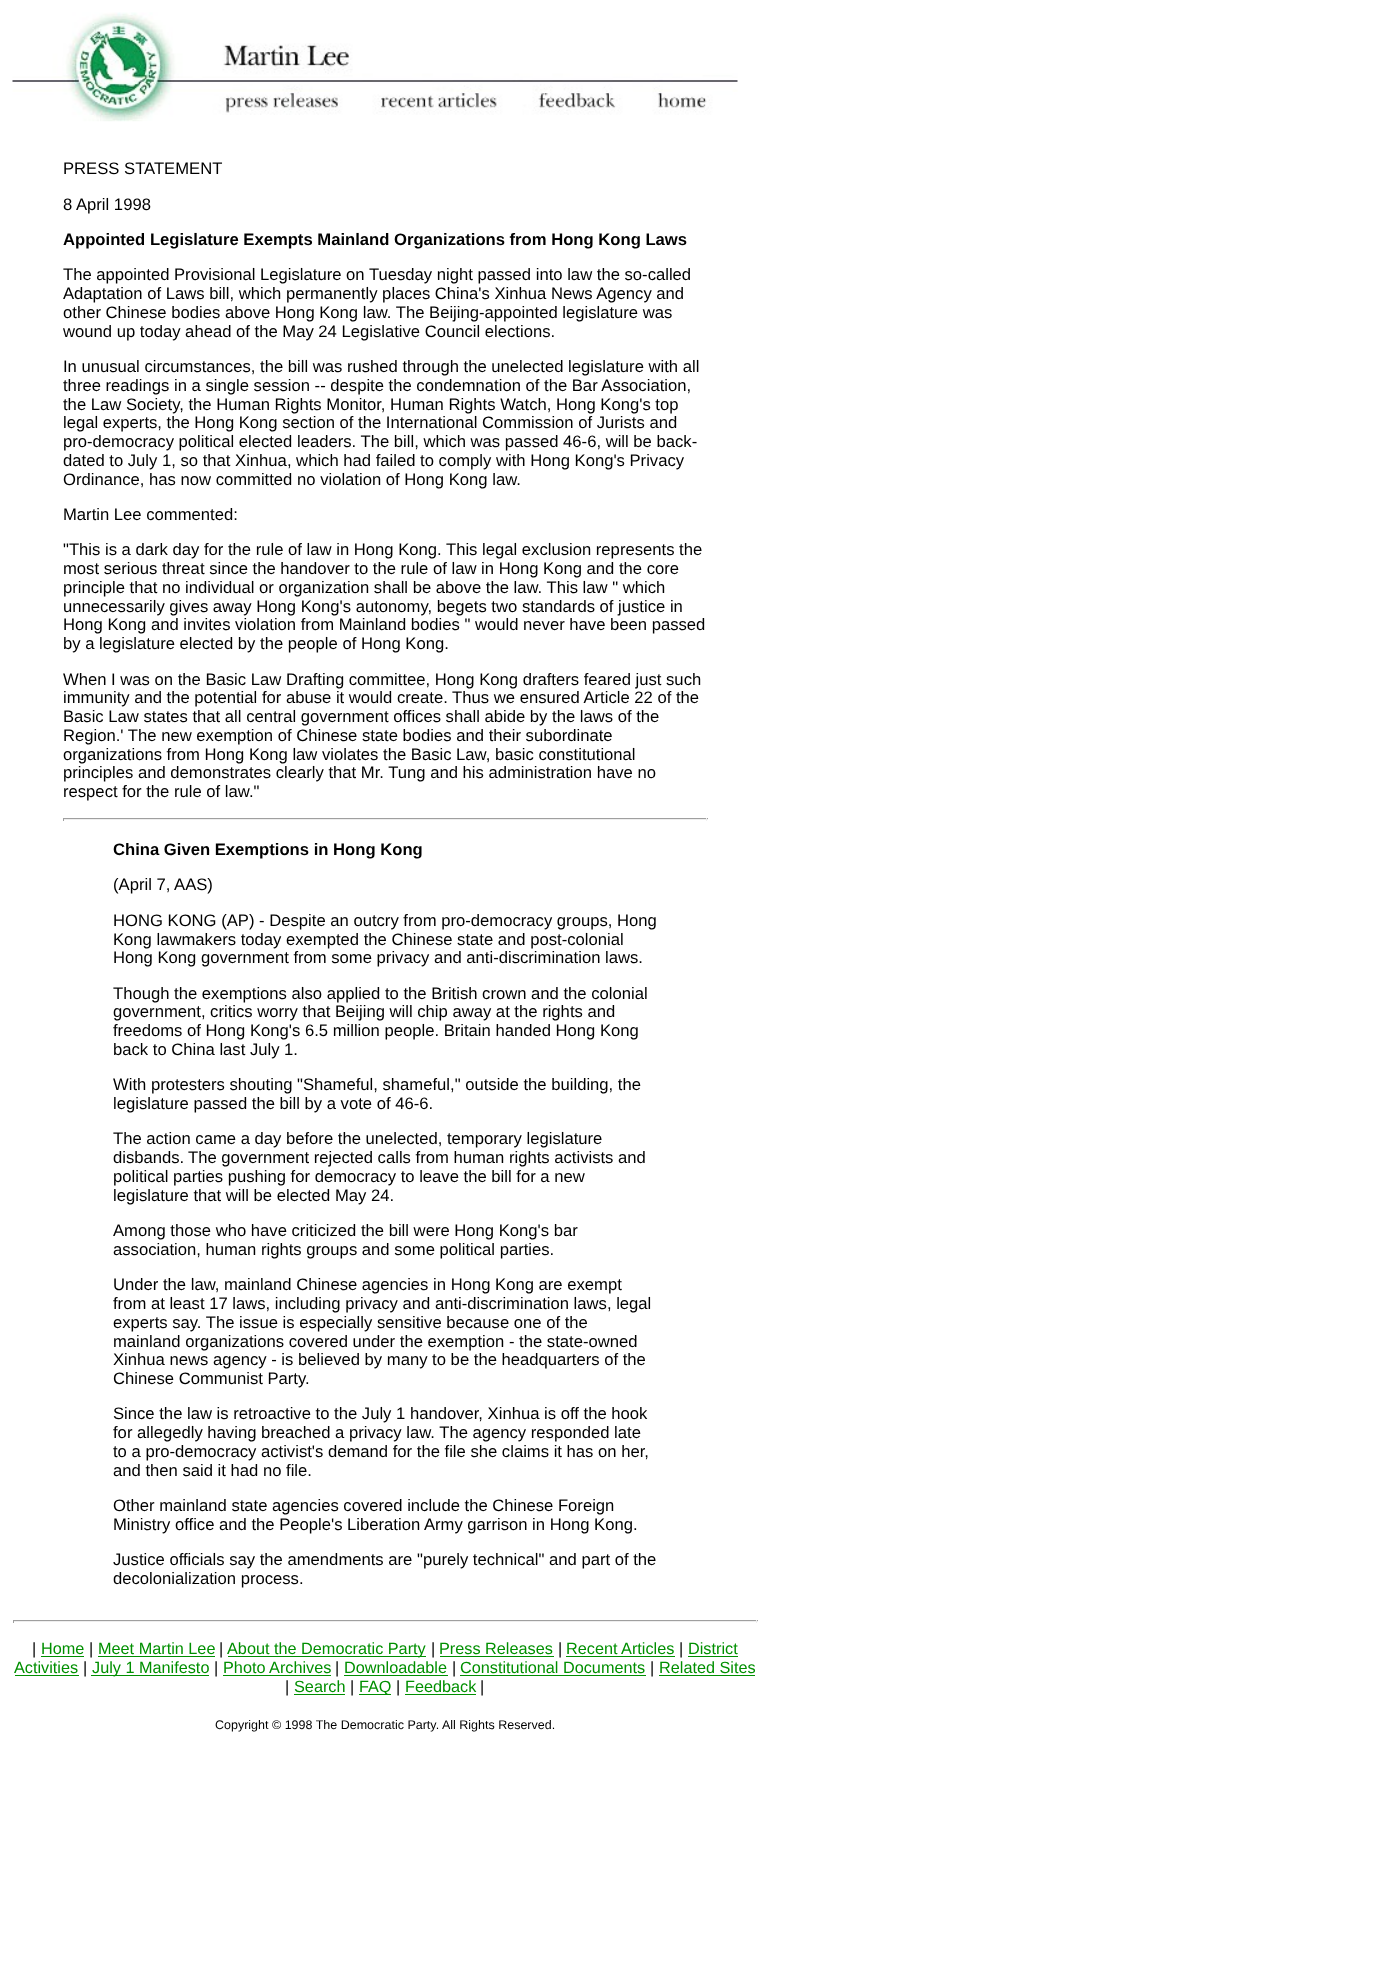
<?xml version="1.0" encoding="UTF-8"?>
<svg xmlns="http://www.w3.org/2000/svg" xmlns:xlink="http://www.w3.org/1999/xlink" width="1395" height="1979">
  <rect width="100%" height="100%" fill="#ffffff" />
  <image x="12" y="12" width="726" height="110" xlink:href="image1.png" />
  <rect x="63" y="818" width="645" height="1" fill="#9f9f9f" />
  <rect x="706" y="818" width="1" height="3" fill="#eeeeee" />
  <rect x="63" y="819" width="645" height="1" fill="#eeeeee" />
  <rect x="63" y="818" width="1" height="3" fill="#9f9f9f" />
  <rect x="13" y="1620" width="745" height="1" fill="#9f9f9f" />
  <rect x="756" y="1620" width="1" height="3" fill="#eeeeee" />
  <rect x="13" y="1621" width="745" height="1" fill="#eeeeee" />
  <rect x="13" y="1620" width="1" height="3" fill="#9f9f9f" />
  <rect x="41" y="1656" width="43" height="1" fill="#008f00" />
  <rect x="98" y="1656" width="117" height="1" fill="#008f00" />
  <rect x="228" y="1656" width="198" height="1" fill="#008f00" />
  <rect x="440" y="1656" width="114" height="1" fill="#008f00" />
  <rect x="566" y="1656" width="109" height="1" fill="#008f00" />
  <rect x="688" y="1656" width="50" height="1" fill="#008f00" />
  <rect x="15" y="1675" width="64" height="1" fill="#008f00" />
  <rect x="91" y="1675" width="118" height="1" fill="#008f00" />
  <rect x="223" y="1675" width="108" height="1" fill="#008f00" />
  <rect x="344" y="1675" width="104" height="1" fill="#008f00" />
  <rect x="460" y="1675" width="186" height="1" fill="#008f00" />
  <rect x="659" y="1675" width="96" height="1" fill="#008f00" />
  <rect x="294" y="1694" width="51" height="1" fill="#008f00" />
  <rect x="359" y="1694" width="32" height="1" fill="#008f00" />
  <rect x="405" y="1694" width="71" height="1" fill="#008f00" />
  <text x="63" y="174" style="font-family: Liberation Sans; font-size: 16.65px; fill: #000000">PRESS STATEMENT</text>
  <text x="63" y="210" style="font-family: Liberation Sans; font-size: 16.65px; fill: #000000">8 April 1998</text>
  <text x="63" y="245" style="font-family: Liberation Sans; font-size: 16.65px; font-weight: bold; fill: #000000">Appointed Legislature Exempts Mainland Organizations from Hong Kong Laws</text>
  <text x="63" y="280" style="font-family: Liberation Sans; font-size: 16.65px; fill: #000000">The appointed Provisional Legislature on Tuesday night passed into law the so-called</text>
  <text x="63" y="299" style="font-family: Liberation Sans; font-size: 16.65px; fill: #000000">Adaptation of Laws bill, which permanently places China's Xinhua News Agency and</text>
  <text x="63" y="318" style="font-family: Liberation Sans; font-size: 16.65px; fill: #000000">other Chinese bodies above Hong Kong law. The Beijing-appointed legislature was</text>
  <text x="63" y="337" style="font-family: Liberation Sans; font-size: 16.65px; fill: #000000">wound up today ahead of the May 24 Legislative Council elections.</text>
  <text x="63" y="372" style="font-family: Liberation Sans; font-size: 16.65px; fill: #000000">In unusual circumstances, the bill was rushed through the unelected legislature with all</text>
  <text x="63" y="391" style="font-family: Liberation Sans; font-size: 16.65px; fill: #000000">three readings in a single session -- despite the condemnation of the Bar Association,</text>
  <text x="63" y="410" style="font-family: Liberation Sans; font-size: 16.65px; fill: #000000">the Law Society, the Human Rights Monitor, Human Rights Watch, Hong Kong's top</text>
  <text x="63" y="428" style="font-family: Liberation Sans; font-size: 16.65px; fill: #000000">legal experts, the Hong Kong section of the International Commission of Jurists and</text>
  <text x="63" y="447" style="font-family: Liberation Sans; font-size: 16.65px; fill: #000000">pro-democracy political elected leaders. The bill, which was passed 46-6, will be back-</text>
  <text x="63" y="466" style="font-family: Liberation Sans; font-size: 16.65px; fill: #000000">dated to July 1, so that Xinhua, which had failed to comply with Hong Kong's Privacy</text>
  <text x="63" y="485" style="font-family: Liberation Sans; font-size: 16.65px; fill: #000000">Ordinance, has now committed no violation of Hong Kong law.</text>
  <text x="63" y="520" style="font-family: Liberation Sans; font-size: 16.65px; fill: #000000">Martin Lee commented:</text>
  <text x="63" y="555" style="font-family: Liberation Sans; font-size: 16.65px; fill: #000000">"This is a dark day for the rule of law in Hong Kong. This legal exclusion represents the</text>
  <text x="63" y="574" style="font-family: Liberation Sans; font-size: 16.65px; fill: #000000">most serious threat since the handover to the rule of law in Hong Kong and the core</text>
  <text x="63" y="593" style="font-family: Liberation Sans; font-size: 16.65px; fill: #000000">principle that no individual or organization shall be above the law. This law " which</text>
  <text x="63" y="612" style="font-family: Liberation Sans; font-size: 16.65px; fill: #000000">unnecessarily gives away Hong Kong's autonomy, begets two standards of justice in</text>
  <text x="63" y="630" style="font-family: Liberation Sans; font-size: 16.65px; fill: #000000">Hong Kong and invites violation from Mainland bodies " would never have been passed</text>
  <text x="63" y="649" style="font-family: Liberation Sans; font-size: 16.65px; fill: #000000">by a legislature elected by the people of Hong Kong.</text>
  <text x="63" y="685" style="font-family: Liberation Sans; font-size: 16.65px; fill: #000000">When I was on the Basic Law Drafting committee, Hong Kong drafters feared just such</text>
  <text x="63" y="703" style="font-family: Liberation Sans; font-size: 16.65px; fill: #000000">immunity and the potential for abuse it would create. Thus we ensured Article 22 of the</text>
  <text x="63" y="722" style="font-family: Liberation Sans; font-size: 16.65px; fill: #000000">Basic Law states that all central government offices shall abide by the laws of the</text>
  <text x="63" y="741" style="font-family: Liberation Sans; font-size: 16.65px; fill: #000000">Region.' The new exemption of Chinese state bodies and their subordinate</text>
  <text x="63" y="760" style="font-family: Liberation Sans; font-size: 16.65px; fill: #000000">organizations from Hong Kong law violates the Basic Law, basic constitutional</text>
  <text x="63" y="778" style="font-family: Liberation Sans; font-size: 16.65px; fill: #000000">principles and demonstrates clearly that Mr. Tung and his administration have no</text>
  <text x="63" y="797" style="font-family: Liberation Sans; font-size: 16.65px; fill: #000000">respect for the rule of law."</text>
  <text x="113" y="855" style="font-family: Liberation Sans; font-size: 16.65px; font-weight: bold; fill: #000000">China Given Exemptions in Hong Kong</text>
  <text x="113" y="890" style="font-family: Liberation Sans; font-size: 16.65px; fill: #000000">(April 7, AAS)</text>
  <text x="113" y="926" style="font-family: Liberation Sans; font-size: 16.65px; fill: #000000">HONG KONG (AP) - Despite an outcry from pro-democracy groups, Hong</text>
  <text x="113" y="945" style="font-family: Liberation Sans; font-size: 16.65px; fill: #000000">Kong lawmakers today exempted the Chinese state and post-colonial</text>
  <text x="113" y="963" style="font-family: Liberation Sans; font-size: 16.65px; fill: #000000">Hong Kong government from some privacy and anti-discrimination laws.</text>
  <text x="113" y="999" style="font-family: Liberation Sans; font-size: 16.65px; fill: #000000">Though the exemptions also applied to the British crown and the colonial</text>
  <text x="113" y="1017" style="font-family: Liberation Sans; font-size: 16.65px; fill: #000000">government, critics worry that Beijing will chip away at the rights and</text>
  <text x="113" y="1036" style="font-family: Liberation Sans; font-size: 16.65px; fill: #000000">freedoms of Hong Kong's 6.5 million people. Britain handed Hong Kong</text>
  <text x="113" y="1055" style="font-family: Liberation Sans; font-size: 16.65px; fill: #000000">back to China last July 1.</text>
  <text x="113" y="1090" style="font-family: Liberation Sans; font-size: 16.65px; fill: #000000">With protesters shouting "Shameful, shameful," outside the building, the</text>
  <text x="113" y="1109" style="font-family: Liberation Sans; font-size: 16.65px; fill: #000000">legislature passed the bill by a vote of 46-6.</text>
  <text x="113" y="1144" style="font-family: Liberation Sans; font-size: 16.65px; fill: #000000">The action came a day before the unelected, temporary legislature</text>
  <text x="113" y="1163" style="font-family: Liberation Sans; font-size: 16.65px; fill: #000000">disbands.</text>
  <text x="188" y="1163" style="font-family: Liberation Sans; font-size: 16.65px; fill: #000000">The government rejected calls from human rights activists and</text>
  <text x="113" y="1182" style="font-family: Liberation Sans; font-size: 16.65px; fill: #000000">political parties pushing for democracy to leave the bill for a new</text>
  <text x="113" y="1201" style="font-family: Liberation Sans; font-size: 16.65px; fill: #000000">legislature that will be elected May 24.</text>
  <text x="113" y="1236" style="font-family: Liberation Sans; font-size: 16.65px; fill: #000000">Among those who have criticized the bill were Hong Kong's bar</text>
  <text x="113" y="1255" style="font-family: Liberation Sans; font-size: 16.65px; fill: #000000">association, human rights groups and some political parties.</text>
  <text x="113" y="1290" style="font-family: Liberation Sans; font-size: 16.65px; fill: #000000">Under the law, mainland Chinese agencies in Hong Kong are exempt</text>
  <text x="113" y="1309" style="font-family: Liberation Sans; font-size: 16.65px; fill: #000000">from at least 17 laws, including privacy and anti-discrimination laws, legal</text>
  <text x="113" y="1328" style="font-family: Liberation Sans; font-size: 16.65px; fill: #000000">experts say. The issue is especially sensitive because one of the</text>
  <text x="113" y="1347" style="font-family: Liberation Sans; font-size: 16.65px; fill: #000000">mainland organizations covered under the exemption - the state-owned</text>
  <text x="113" y="1365" style="font-family: Liberation Sans; font-size: 16.65px; fill: #000000">Xinhua news agency - is believed by many to be the headquarters of the</text>
  <text x="113" y="1384" style="font-family: Liberation Sans; font-size: 16.65px; fill: #000000">Chinese Communist Party.</text>
  <text x="113" y="1419" style="font-family: Liberation Sans; font-size: 16.65px; fill: #000000">Since the law is retroactive to the July 1 handover, Xinhua is off the hook</text>
  <text x="113" y="1438" style="font-family: Liberation Sans; font-size: 16.65px; fill: #000000">for allegedly having breached a privacy law. The agency responded late</text>
  <text x="113" y="1457" style="font-family: Liberation Sans; font-size: 16.65px; fill: #000000">to a pro-democracy activist's demand for the file she claims it has on her,</text>
  <text x="113" y="1476" style="font-family: Liberation Sans; font-size: 16.65px; fill: #000000">and then said it had no file.</text>
  <text x="113" y="1511" style="font-family: Liberation Sans; font-size: 16.65px; fill: #000000">Other mainland state agencies covered include the Chinese Foreign</text>
  <text x="113" y="1530" style="font-family: Liberation Sans; font-size: 16.65px; fill: #000000">Ministry office and the People's Liberation Army garrison in Hong Kong.</text>
  <text x="113" y="1565" style="font-family: Liberation Sans; font-size: 16.65px; fill: #000000">Justice officials say the amendments are "purely technical" and part of the</text>
  <text x="113" y="1584" style="font-family: Liberation Sans; font-size: 16.65px; fill: #000000">decolonialization process.</text>
  <text x="32" y="1654" style="font-family: Liberation Sans; font-size: 16.25px; fill: #000000">|</text>
  <text x="41" y="1654" style="font-family: Liberation Sans; font-size: 16.25px; fill: #008f00">Home</text>
  <text x="89" y="1654" style="font-family: Liberation Sans; font-size: 16.25px; fill: #000000">|</text>
  <text x="98" y="1654" style="font-family: Liberation Sans; font-size: 16.25px; fill: #008f00">Meet Martin Lee</text>
  <text x="219" y="1654" style="font-family: Liberation Sans; font-size: 16.25px; fill: #000000">|</text>
  <text x="227" y="1654" style="font-family: Liberation Sans; font-size: 16.25px; fill: #008f00">About the Democratic Party</text>
  <text x="431" y="1654" style="font-family: Liberation Sans; font-size: 16.25px; fill: #000000">|</text>
  <text x="439" y="1654" style="font-family: Liberation Sans; font-size: 16.25px; fill: #008f00">Press Releases</text>
  <text x="558" y="1654" style="font-family: Liberation Sans; font-size: 16.25px; fill: #000000">|</text>
  <text x="566" y="1654" style="font-family: Liberation Sans; font-size: 16.25px; fill: #008f00">Recent Articles</text>
  <text x="679" y="1654" style="font-family: Liberation Sans; font-size: 16.25px; fill: #000000">|</text>
  <text x="688" y="1654" style="font-family: Liberation Sans; font-size: 16.25px; fill: #008f00">District</text>
  <text x="14" y="1673" style="font-family: Liberation Sans; font-size: 16.25px; fill: #008f00">Activities</text>
  <text x="83" y="1673" style="font-family: Liberation Sans; font-size: 16.25px; fill: #000000">|</text>
  <text x="92" y="1673" style="font-family: Liberation Sans; font-size: 16.25px; fill: #008f00">July 1 Manifesto</text>
  <text x="214" y="1673" style="font-family: Liberation Sans; font-size: 16.25px; fill: #000000">|</text>
  <text x="223" y="1673" style="font-family: Liberation Sans; font-size: 16.25px; fill: #008f00">Photo Archives</text>
  <text x="335" y="1673" style="font-family: Liberation Sans; font-size: 16.25px; fill: #000000">|</text>
  <text x="344" y="1673" style="font-family: Liberation Sans; font-size: 16.25px; fill: #008f00">Downloadable</text>
  <text x="452" y="1673" style="font-family: Liberation Sans; font-size: 16.25px; fill: #000000">|</text>
  <text x="460" y="1673" style="font-family: Liberation Sans; font-size: 16.25px; fill: #008f00">Constitutional Documents</text>
  <text x="650" y="1673" style="font-family: Liberation Sans; font-size: 16.25px; fill: #000000">|</text>
  <text x="659" y="1673" style="font-family: Liberation Sans; font-size: 16.25px; fill: #008f00">Related Sites</text>
  <text x="285" y="1692" style="font-family: Liberation Sans; font-size: 16.25px; fill: #000000">|</text>
  <text x="294" y="1692" style="font-family: Liberation Sans; font-size: 16.25px; fill: #008f00">Search</text>
  <text x="350" y="1692" style="font-family: Liberation Sans; font-size: 16.25px; fill: #000000">|</text>
  <text x="359" y="1692" style="font-family: Liberation Sans; font-size: 16.25px; fill: #008f00">FAQ</text>
  <text x="396" y="1692" style="font-family: Liberation Sans; font-size: 16.25px; fill: #000000">|</text>
  <text x="405" y="1692" style="font-family: Liberation Sans; font-size: 16.25px; fill: #008f00">Feedback</text>
  <text x="480" y="1692" style="font-family: Liberation Sans; font-size: 16.25px; fill: #000000">|</text>
  <text x="215" y="1729" style="font-family: Liberation Sans; font-size: 12.5px; fill: #000000">Copyright © 1998 The Democratic Party. All Rights Reserved.</text>
</svg>
